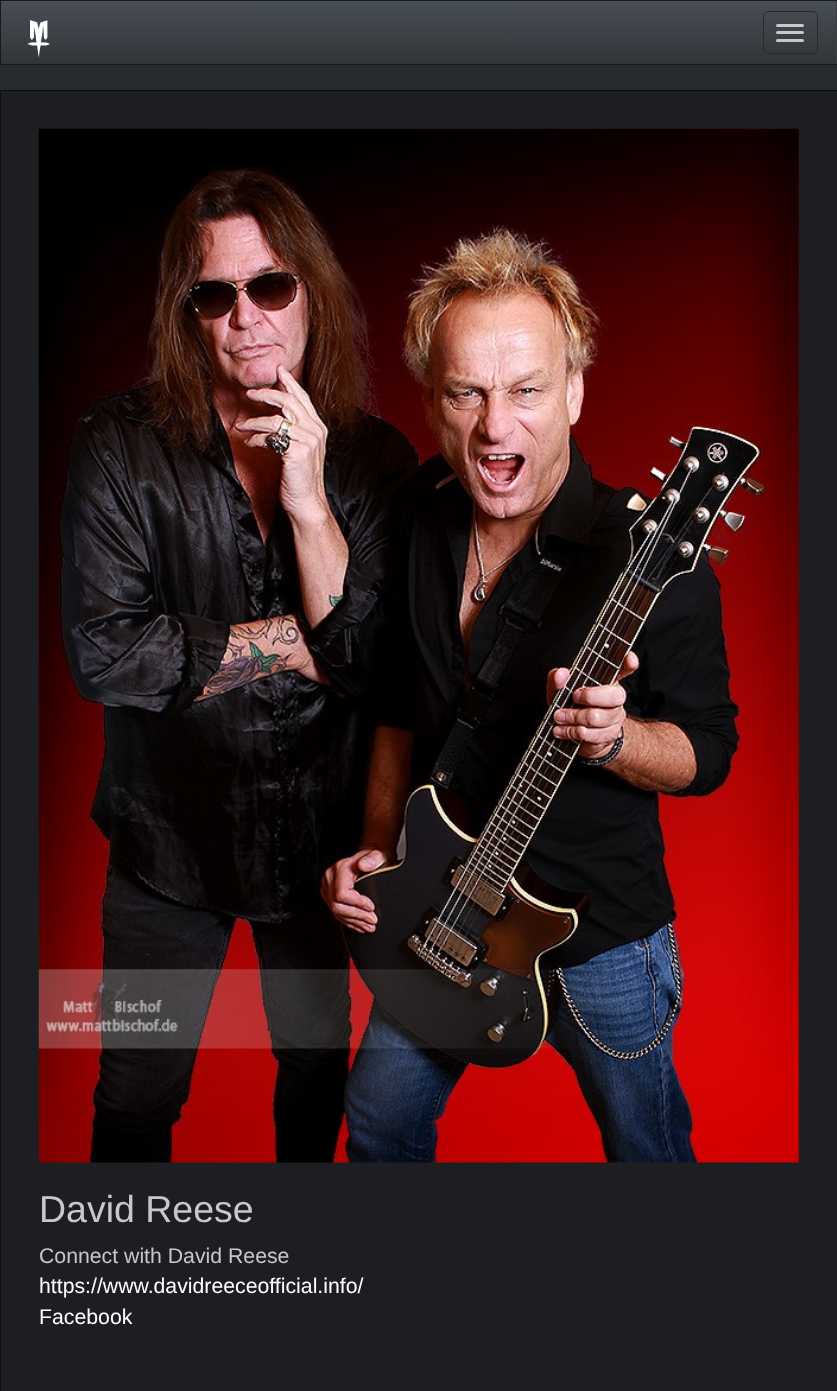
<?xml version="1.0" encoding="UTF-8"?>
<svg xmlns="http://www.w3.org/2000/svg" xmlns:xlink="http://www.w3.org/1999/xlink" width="837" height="1391">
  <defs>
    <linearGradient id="g1" gradientUnits="userSpaceOnUse" x1="419" y1="1.2" x2="419" y2="64"><stop offset="0" stop-color="#484e55" /><stop offset="0.6" stop-color="#3a3f44" /><stop offset="1" stop-color="#313539" /></linearGradient>
  </defs>
  <rect width="100%" height="100%" fill="#272b30" />
  <rect x="836" y="1" width="1" height="63" fill="#3a3f44" />
  <rect x="1" y="1" width="835" height="63" fill="url(#g1)" />
  <rect x="0.5" y="0.5" width="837" height="64" fill="none" stroke="#17191b" />
  <image x="27" y="20" width="24" height="38" xlink:href="image1.png" />
  <rect x="763.5" y="11.5" width="54" height="42" rx="4.5" fill="none" stroke="#272b2e" />
  <rect x="776" y="24" width="28" height="3" rx="1.5" fill="#c8c8c8" />
  <rect x="776" y="31" width="28" height="3" rx="1.5" fill="#c8c8c8" />
  <rect x="776" y="39" width="28" height="3" rx="1.5" fill="#c8c8c8" />
  <rect x="0.5" y="90.5" width="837" height="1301" fill="#1c1e22" stroke="#0b0c0e" />
  <image x="38" y="128" width="761" height="1035" xlink:href="image2.png" />
  <text x="39" y="1222" style="font-family: Liberation Sans; font-size: 37.5px; fill: #c8c8c8">David Reese</text>
  <text x="39" y="1263" style="font-family: Liberation Sans; font-size: 21.25px; fill: #c8c8c8">Connect with David Reese</text>
  <text x="39" y="1293" style="font-family: Liberation Sans; font-size: 21.25px; fill: #ffffff">https://www.davidreeceofficial.info/</text>
  <text x="39" y="1324" style="font-family: Liberation Sans; font-size: 21.25px; fill: #ffffff">Facebook</text>
</svg>
